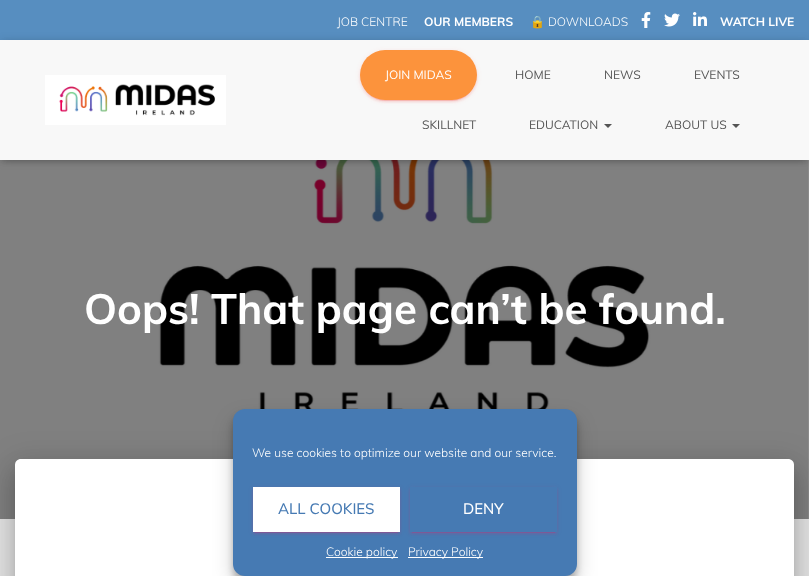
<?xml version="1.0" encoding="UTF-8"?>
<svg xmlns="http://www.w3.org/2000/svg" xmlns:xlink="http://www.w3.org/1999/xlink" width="809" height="576">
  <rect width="100%" height="100%" fill="#e5e5e5" />
  <rect width="809" height="40" fill="#578ec0" />
  <image x="641" y="12" width="10" height="16" xlink:href="image1.png" />
  <image x="664" y="13" width="16" height="14" xlink:href="image2.png" />
  <image x="693" y="12" width="14" height="14" xlink:href="image3.png" />
  <image x="0" y="160" width="809" height="359" xlink:href="image5.png" />
  <rect x="2" y="46" width="805" height="116" fill="#000000" fill-opacity="0.1" filter="blur(2.5px)" />
  <rect y="41" width="809" height="120" fill="#000000" fill-opacity="0.12" filter="blur(5px)" />
  <rect x="6" y="47" width="797" height="108" fill="#000000" fill-opacity="0.42" filter="blur(5px)" />
  <rect y="40" width="809" height="120" fill="#f8f8f8" />
  <image x="45" y="75" width="181" height="50" xlink:href="image4.png" />
  <rect x="360" y="51" width="117" height="50" rx="25" fill="#f44336" fill-opacity="0.12" filter="blur(2.5px)" />
  <rect x="362" y="55" width="113" height="46" rx="23" fill="#f44336" fill-opacity="0.2" filter="blur(0.5px)" />
  <rect x="360" y="52" width="117" height="50" rx="25" fill="#f44336" fill-opacity="0.14" filter="blur(1px)" />
  <rect x="360" y="50" width="117" height="50" rx="25" fill="#fc933c" />
  <path d="M 604 124 h 8 l -4 4 z" fill="#555555" />
  <path d="M 732 124 h 8 l -4 4 z" fill="#555555" />
  <rect x="20" y="472" width="769" height="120" rx="1" fill="#000000" fill-opacity="0.2" filter="blur(5px)" />
  <rect x="10" y="460" width="789" height="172" rx="11" fill="#000000" fill-opacity="0.12" filter="blur(15px)" />
  <rect x="13" y="473" width="783" height="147" rx="8" fill="#000000" fill-opacity="0.14" filter="blur(12px)" />
  <path d="M 21 459 h 767 c 3.5 0 6 2.5 6 6 v 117 h -779 v -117 c 0 -3.5 2.5 -6 6 -6 z" fill="#ffffff" />
  <rect x="233" y="415" width="344" height="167" rx="12" fill="#000000" fill-opacity="0.23" filter="blur(3px)" />
  <rect x="233" y="419" width="344" height="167" rx="12" fill="#000000" fill-opacity="0.19" filter="blur(10px)" />
  <rect x="233" y="409" width="344" height="167" rx="12" fill="#467ab3" />
  <rect x="253" y="488" width="147" height="45" fill="#e91e63" fill-opacity="0.12" filter="blur(2.5px)" />
  <rect x="255" y="492" width="143" height="41" fill="#e91e63" fill-opacity="0.2" filter="blur(0.5px)" />
  <rect x="253" y="489" width="147" height="45" fill="#e91e63" fill-opacity="0.14" filter="blur(1px)" />
  <rect x="253" y="487" width="147" height="45" fill="#ffffff" />
  <rect x="410" y="488" width="147" height="45" fill="#e91e63" fill-opacity="0.12" filter="blur(2.5px)" />
  <rect x="412" y="492" width="143" height="41" fill="#e91e63" fill-opacity="0.2" filter="blur(0.5px)" />
  <rect x="410" y="489" width="147" height="45" fill="#e91e63" fill-opacity="0.14" filter="blur(1px)" />
  <rect x="410" y="487" width="147" height="45" fill="#467ab3" />
  <rect x="326" y="557" width="72" height="1" fill="#ffffff" />
  <rect x="408" y="557" width="75" height="1" fill="#ffffff" />
  <text x="337" y="26" style="font-family: Muli; font-size: 12px; font-weight: 300; fill: #ffffff">JOB CENTRE</text>
  <text x="424" y="26" style="font-family: Muli; font-size: 12px; font-weight: bold; fill: #ffffff">OUR MEMBERS</text>
  <text x="530" y="26" style="font-family: Noto Color Emoji; font-size: 12px; fill: #ffffff">🔒</text>
  <text x="548" y="26" style="font-family: Muli; font-size: 12px; font-weight: 300; fill: #ffffff">DOWNLOADS</text>
  <text x="720" y="26" style="font-family: Muli; font-size: 12px; font-weight: bold; fill: #ffffff">WATCH LIVE</text>
  <text x="385" y="79" style="font-family: Muli; font-size: 12px; fill: #ffffff">JOIN MIDAS</text>
  <text x="515" y="79" style="font-family: Muli; font-size: 12px; fill: #555555">HOME</text>
  <text x="604" y="79" style="font-family: Muli; font-size: 12px; fill: #555555">NEWS</text>
  <text x="694" y="79" style="font-family: Muli; font-size: 12px; fill: #555555">EVENTS</text>
  <text x="422" y="129" style="font-family: Muli; font-size: 12px; fill: #555555">SKILLNET</text>
  <text x="529" y="129" style="font-family: Muli; font-size: 12px; fill: #555555">EDUCATION</text>
  <text x="665" y="129" style="font-family: Muli; font-size: 12px; fill: #555555">ABOUT US</text>
  <text x="84" y="324" style="font-family: Muli; font-size: 42px; font-weight: bold; fill: #ffffff">Oops! That page can’t be found.</text>
  <text x="252" y="457" style="font-family: Muli; font-size: 12px; font-weight: 300; fill: #ffffff">We use cookies to optimize our website and our service.</text>
  <text x="278" y="514" style="font-family: Muli; font-size: 15px; font-weight: 500; fill: #467ab3">ALL COOKIES</text>
  <text x="463" y="514" style="font-family: Muli; font-size: 15px; font-weight: 500; fill: #ffffff">DENY</text>
  <text x="326" y="556" style="font-family: Muli; font-size: 12px; font-weight: 300; fill: #ffffff">Cookie policy</text>
  <text x="408" y="556" style="font-family: Muli; font-size: 12px; font-weight: 300; fill: #ffffff">Privacy Policy</text>
</svg>
